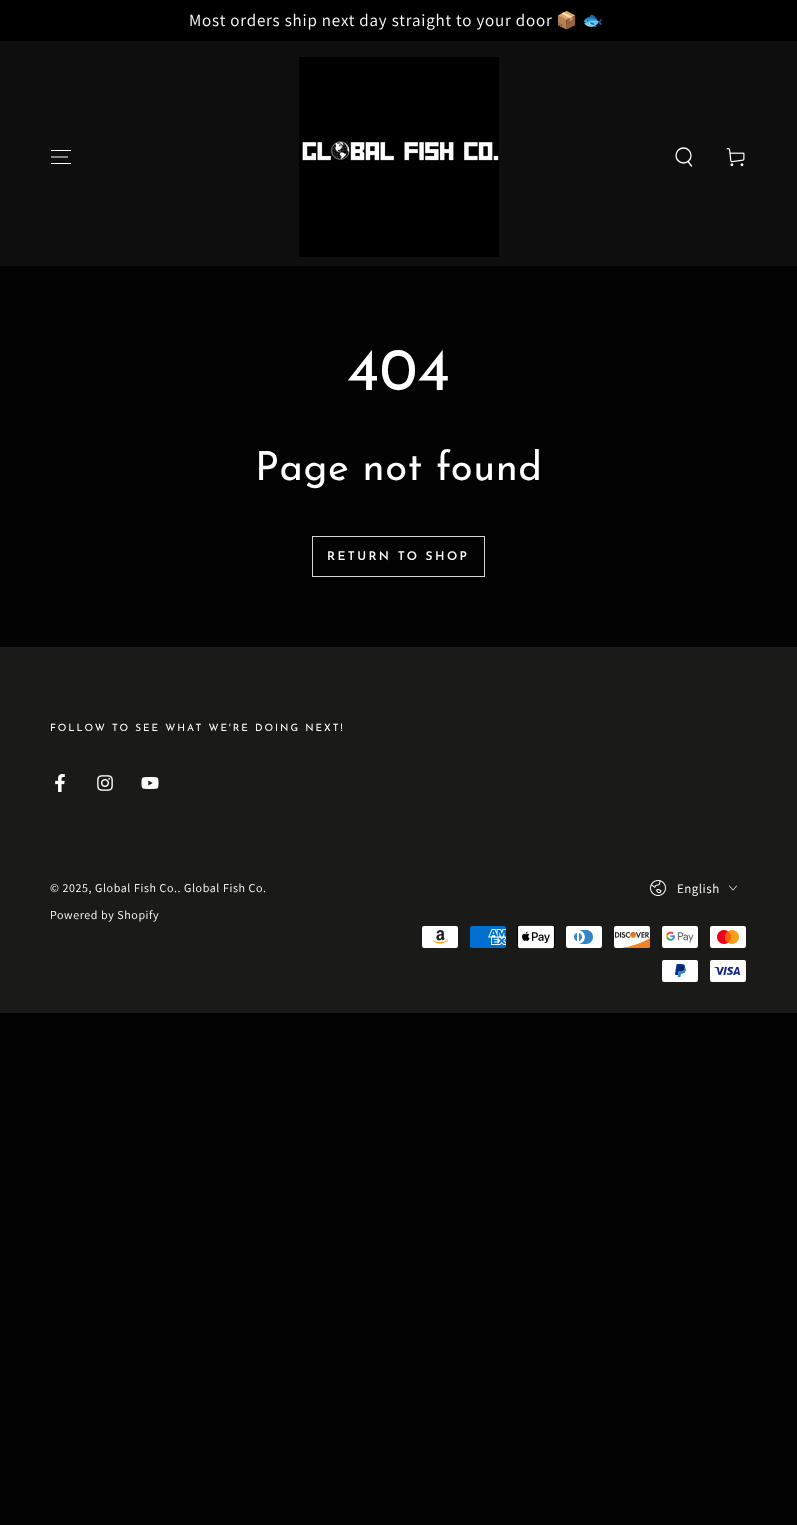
<?xml version="1.0" encoding="UTF-8"?>
<svg xmlns="http://www.w3.org/2000/svg" xmlns:xlink="http://www.w3.org/1999/xlink" width="797" height="1525">
  <rect width="100%" height="100%" fill="#030303" />
  <rect width="797" height="41" fill="#000000" />
  <rect y="41" width="797" height="225" fill="#0e0e0e" />
  <path d="M 51 163.5 h 20 m -20 -6.5 h 17 m -17 -6.5 h 20" fill="none" stroke="#ffffff" stroke-width="1.1" />
  <image x="299" y="57" width="200" height="200" xlink:href="image1.png" />
  <circle cx="683.5" cy="155.5" r="7.5" fill="none" stroke="#ffffff" stroke-width="1.3" />
  <path d="M 688 161.5 l 3.5 4.5" fill="none" stroke="#ffffff" stroke-width="1.3" stroke-linecap="round" />
  <image x="726" y="148" width="19" height="19" xlink:href="image2.png" />
  <rect x="312.5" y="536.5" width="172" height="40" fill="none" stroke="#d2d5d9" />
  <rect y="647" width="797" height="366" fill="#1a1b18" />
  <image x="55" y="774" width="10" height="18" xlink:href="image3.png" />
  <image x="97" y="775" width="16" height="16" xlink:href="image4.png" />
  <image x="141" y="777" width="18" height="12" xlink:href="image5.png" />
  <image x="650" y="880" width="16" height="16" xlink:href="image6.png" />
  <image x="729" y="885" width="8" height="6" xlink:href="image7.png" />
  <image x="422" y="926" width="36" height="22" xlink:href="image8.png" />
  <image x="470" y="926" width="36" height="22" xlink:href="image9.png" />
  <image x="517" y="925" width="38" height="24" xlink:href="image10.png" />
  <image x="566" y="926" width="36" height="22" xlink:href="image11.png" />
  <image x="614" y="926" width="36" height="22" xlink:href="image12.png" />
  <image x="662" y="926" width="36" height="22" xlink:href="image13.png" />
  <image x="710" y="926" width="36" height="22" xlink:href="image14.png" />
  <image x="662" y="960" width="36" height="22" xlink:href="image15.png" />
  <image x="710" y="960" width="36" height="22" xlink:href="image16.png" />
  <text x="189" y="26" style="font-family: Assistant; font-size: 17px; letter-spacing: 0.8px; fill: #ffffff">Most orders ship next day straight to your door</text>
  <text x="556" y="26" style="font-family: Noto Color Emoji; font-size: 17px; letter-spacing: 0.8px; fill: #ffffff">📦</text>
  <text x="582" y="26" style="font-family: Noto Color Emoji; font-size: 17px; letter-spacing: 0.8px; fill: #ffffff">🐟</text>
  <text x="347" y="390" style="font-family: Josefin Sans; font-size: 60px; letter-spacing: 0.6px; fill: #ffffff">404</text>
  <text x="255" y="480" style="font-family: Josefin Sans; font-size: 40px; letter-spacing: 0.6px; fill: #ffffff">Page not found</text>
  <text x="327" y="560" style="font-family: Josefin Sans; font-size: 12px; font-weight: 600; letter-spacing: 2.4px; fill: #ffffff">RETURN TO SHOP</text>
  <text x="50" y="731" style="font-family: Josefin Sans; font-size: 10px; letter-spacing: 2px; fill: #ffffff">FOLLOW TO SEE WHAT WE'RE DOING NEXT!</text>
  <text x="50" y="892" style="font-family: Assistant; font-size: 12px; letter-spacing: 0.6px; fill: #ffffff">© 2025, Global Fish Co.. Global Fish Co.</text>
  <text x="50" y="919" style="font-family: Assistant; font-size: 12px; letter-spacing: 0.6px; fill: #ffffff">Powered by Shopify</text>
  <text x="677" y="893" style="font-family: Assistant; font-size: 13px; letter-spacing: 0.5px; fill: #ffffff">English</text>
</svg>
